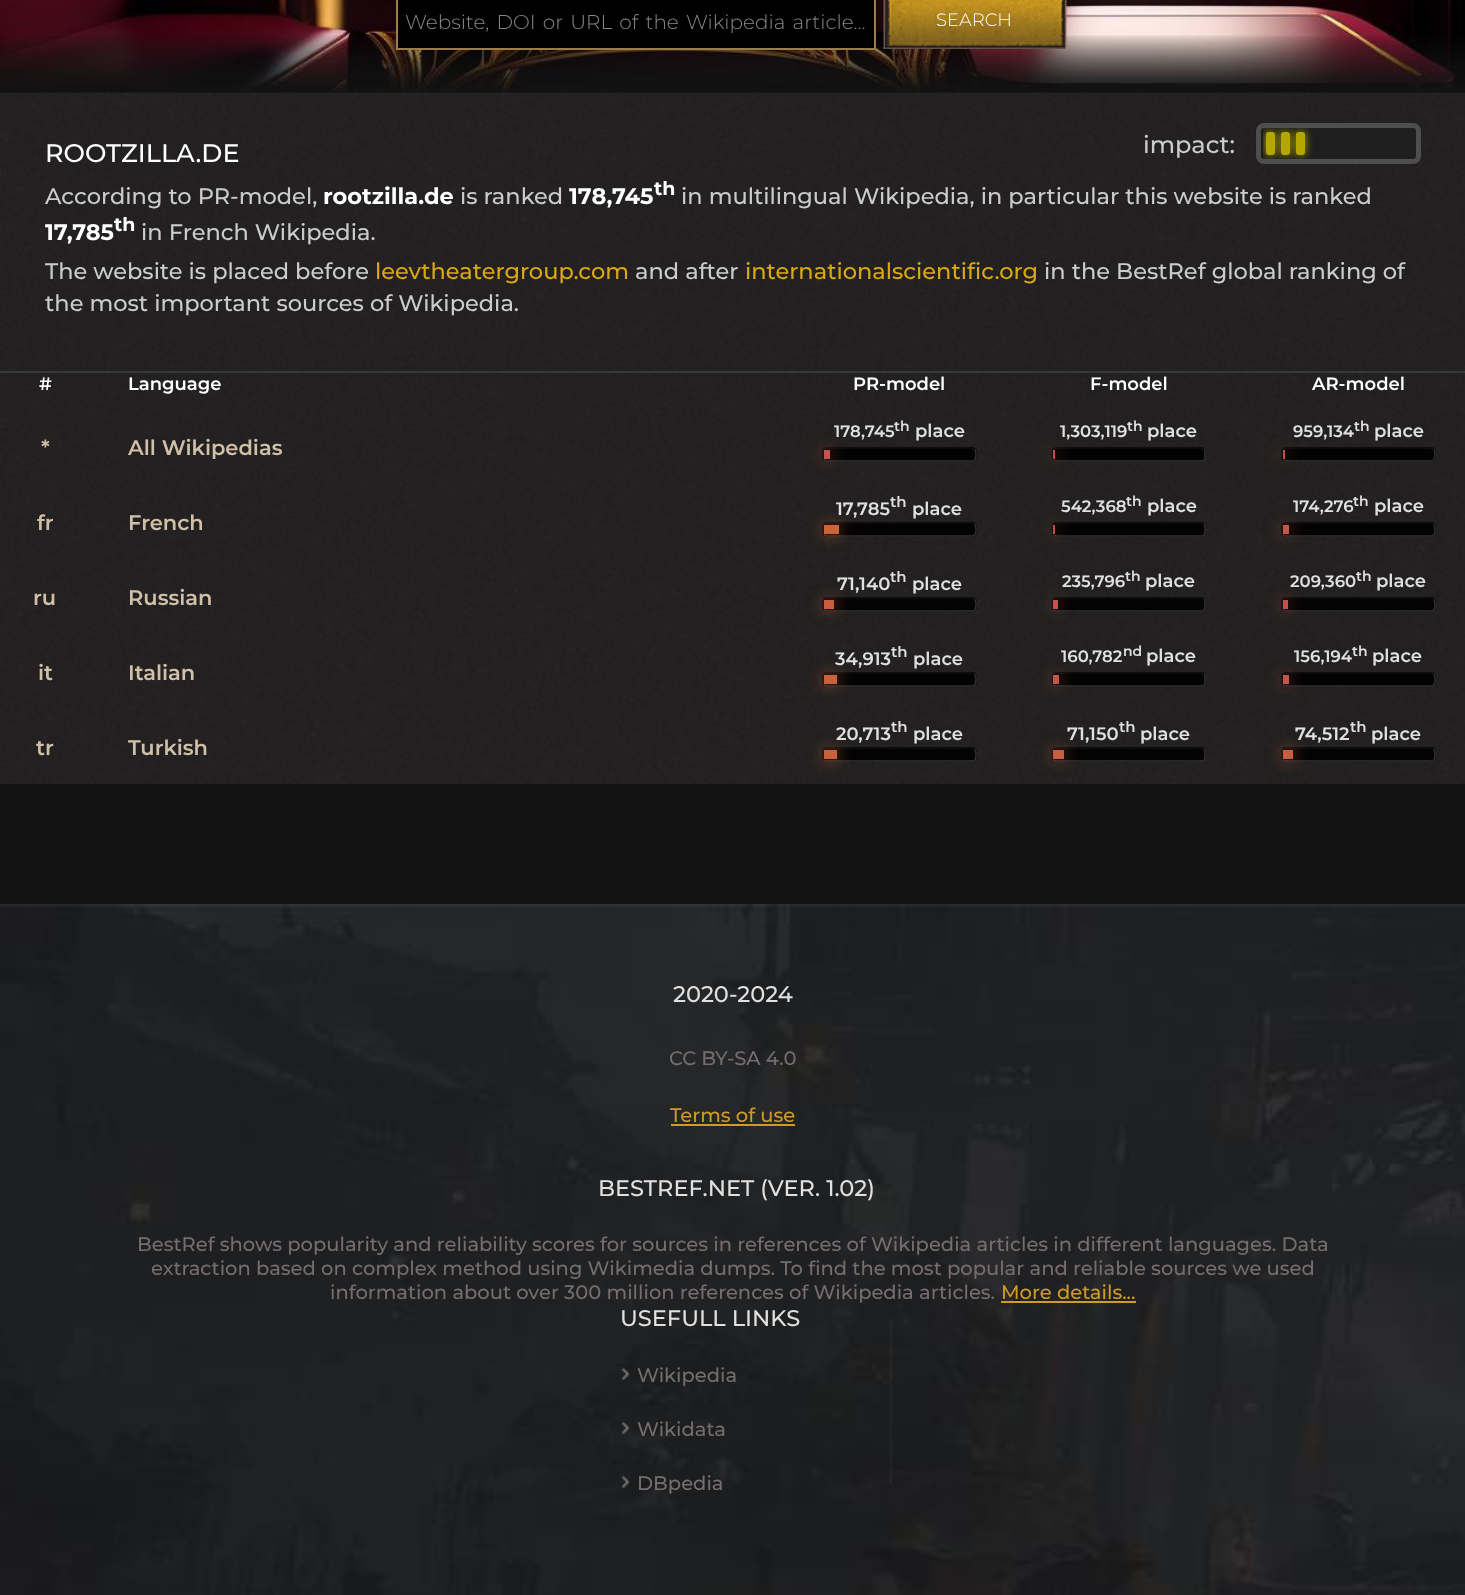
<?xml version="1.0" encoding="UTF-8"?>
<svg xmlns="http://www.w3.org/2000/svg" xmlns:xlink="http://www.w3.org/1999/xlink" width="1465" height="1595">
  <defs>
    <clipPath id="clip1"><rect x="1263" y="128" width="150" height="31" /></clipPath>
  </defs>
  <rect width="100%" height="100%" fill="#121212" />
  <image x="0" y="0" width="1465" height="92" xlink:href="image1.png" />
  <rect x="397" y="-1" width="478" height="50" fill="#000000" stroke="#997d4c" stroke-width="2" />
  <image x="883" y="0" width="184" height="49" xlink:href="image2.png" />
  <image x="0" y="92" width="1465" height="692" xlink:href="image3.png" />
  <rect y="371" width="1465" height="2" fill="#3a3939" />
  <rect x="1258.5" y="125.5" width="160" height="36" rx="5.5" fill="#1e1e1e" stroke="#4e4e4e" stroke-width="5" />
  <g clip-path="url(#clip1)">
    <rect x="1266" y="132" width="9" height="23" rx="3" fill="#b3a700" filter="blur(4px)" />
  </g>
  <rect x="1266" y="132" width="9" height="23" rx="3" fill="#b3a700" />
  <g clip-path="url(#clip1)">
    <rect x="1281" y="132" width="9" height="23" rx="3" fill="#b3a700" filter="blur(4px)" />
  </g>
  <rect x="1281" y="132" width="9" height="23" rx="3" fill="#b3a700" />
  <g clip-path="url(#clip1)">
    <rect x="1296" y="132" width="9" height="23" rx="3" fill="#b3a700" filter="blur(4px)" />
  </g>
  <rect x="1296" y="132" width="9" height="23" rx="3" fill="#b3a700" />
  <rect x="822" y="447" width="155" height="15" rx="5" fill="#030303" />
  <path d="M 974.5 449 c 1.5 1.5 1.5 3.5 1.5 5.5 c 0 2.5 0 6.5 -3.5 6.5 h -146 l -2.5 -1" fill="none" stroke="#333333" stroke-width="1.5" />
  <path d="M 824 460 c -1.5 -1.5 -1 -3.5 -1 -5.5 c 0 -2.5 -0.5 -6.5 3 -6.5 h 146 l 2.5 1" fill="none" stroke="#111111" stroke-width="1.5" />
  <rect x="822" y="449" width="9" height="12" fill="#c25649" fill-opacity="0.52" filter="blur(7.5px)" />
  <rect x="824" y="450" width="6" height="9" fill="#c25649" />
  <rect x="1052" y="447" width="154" height="15" rx="5" fill="#030303" />
  <path d="M 1204 449 c 1.5 1.5 1 3.5 1 5.5 c 0 2.5 0.5 6.5 -3 6.5 h -146 l -2.5 -1" fill="none" stroke="#333333" stroke-width="1.5" />
  <path d="M 1053.5 460 c -1.5 -1.5 -1.5 -3.5 -1.5 -5.5 c 0 -2.5 0 -6.5 3.5 -6.5 h 146 l 2.5 1" fill="none" stroke="#111111" stroke-width="1.5" />
  <rect x="1052" y="449" width="5" height="12" fill="#bc5050" fill-opacity="0.51" filter="blur(7.5px)" />
  <rect x="1053" y="450" width="2" height="9" fill="#bc5050" />
  <rect x="1281" y="447" width="155" height="15" rx="5" fill="#030303" />
  <path d="M 1433.5 449 c 1.5 1.5 1.5 3.5 1.5 5.5 c 0 2.5 0 6.5 -3.5 6.5 h -146 l -2.5 -1" fill="none" stroke="#333333" stroke-width="1.5" />
  <path d="M 1283 460 c -1.5 -1.5 -1 -3.5 -1 -5.5 c 0 -2.5 -0.5 -6.5 3 -6.5 h 146 l 2.5 1" fill="none" stroke="#111111" stroke-width="1.5" />
  <rect x="1281" y="449" width="5" height="12" fill="#bc5050" fill-opacity="0.51" filter="blur(7.5px)" />
  <rect x="1283" y="450" width="2" height="9" fill="#bc5050" />
  <rect x="822" y="522" width="155" height="15" rx="5" fill="#030303" />
  <path d="M 974.5 524 c 1.5 1.5 1.5 3.5 1.5 5.5 c 0 2.5 0 6.5 -3.5 6.5 h -146 l -2.5 -1" fill="none" stroke="#333333" stroke-width="1.5" />
  <path d="M 824 535 c -1.5 -1.5 -1 -3.5 -1 -5.5 c 0 -2.5 -0.5 -6.5 3 -6.5 h 146 l 2.5 1" fill="none" stroke="#111111" stroke-width="1.5" />
  <rect x="822" y="524" width="18" height="12" fill="#ca6539" fill-opacity="0.55" filter="blur(7.5px)" />
  <rect x="824" y="525" width="15" height="9" fill="#ca6539" />
  <rect x="1052" y="522" width="154" height="15" rx="5" fill="#030303" />
  <path d="M 1204 524 c 1.5 1.5 1 3.5 1 5.5 c 0 2.5 0.5 6.5 -3 6.5 h -146 l -2.5 -1" fill="none" stroke="#333333" stroke-width="1.5" />
  <path d="M 1053.5 535 c -1.5 -1.5 -1.5 -3.5 -1.5 -5.5 c 0 -2.5 0 -6.5 3.5 -6.5 h 146 l 2.5 1" fill="none" stroke="#111111" stroke-width="1.5" />
  <rect x="1052" y="524" width="5" height="12" fill="#bc5050" fill-opacity="0.51" filter="blur(7.5px)" />
  <rect x="1053" y="525" width="2" height="9" fill="#bc5050" />
  <rect x="1281" y="522" width="155" height="15" rx="5" fill="#030303" />
  <path d="M 1433.5 524 c 1.5 1.5 1.5 3.5 1.5 5.5 c 0 2.5 0 6.5 -3.5 6.5 h -146 l -2.5 -1" fill="none" stroke="#333333" stroke-width="1.5" />
  <path d="M 1283 535 c -1.5 -1.5 -1 -3.5 -1 -5.5 c 0 -2.5 -0.5 -6.5 3 -6.5 h 146 l 2.5 1" fill="none" stroke="#111111" stroke-width="1.5" />
  <rect x="1281" y="524" width="9" height="12" fill="#c25649" fill-opacity="0.52" filter="blur(7.5px)" />
  <rect x="1283" y="525" width="6" height="9" fill="#c25649" />
  <rect x="822" y="597" width="155" height="15" rx="5" fill="#030303" />
  <path d="M 974.5 599 c 1.5 1.5 1.5 3.5 1.5 5.5 c 0 2.5 0 6.5 -3.5 6.5 h -146 l -2.5 -1" fill="none" stroke="#333333" stroke-width="1.5" />
  <path d="M 824 610 c -1.5 -1.5 -1 -3.5 -1 -5.5 c 0 -2.5 -0.5 -6.5 3 -6.5 h 146 l 2.5 1" fill="none" stroke="#111111" stroke-width="1.5" />
  <rect x="822" y="599" width="14" height="12" fill="#c75d42" fill-opacity="0.54" filter="blur(7.5px)" />
  <rect x="824" y="600" width="10" height="9" fill="#c75d42" />
  <rect x="1052" y="597" width="154" height="15" rx="5" fill="#030303" />
  <path d="M 1204 599 c 1.5 1.5 1 3.5 1 5.5 c 0 2.5 0.5 6.5 -3 6.5 h -146 l -2.5 -1" fill="none" stroke="#333333" stroke-width="1.5" />
  <path d="M 1053.5 610 c -1.5 -1.5 -1.5 -3.5 -1.5 -5.5 c 0 -2.5 0 -6.5 3.5 -6.5 h 146 l 2.5 1" fill="none" stroke="#111111" stroke-width="1.5" />
  <rect x="1052" y="599" width="7" height="12" fill="#c0544b" fill-opacity="0.52" filter="blur(7.5px)" />
  <rect x="1053" y="600" width="5" height="9" fill="#c0544b" />
  <rect x="1281" y="597" width="155" height="15" rx="5" fill="#030303" />
  <path d="M 1433.5 599 c 1.5 1.5 1.5 3.5 1.5 5.5 c 0 2.5 0 6.5 -3.5 6.5 h -146 l -2.5 -1" fill="none" stroke="#333333" stroke-width="1.5" />
  <path d="M 1283 610 c -1.5 -1.5 -1 -3.5 -1 -5.5 c 0 -2.5 -0.5 -6.5 3 -6.5 h 146 l 2.5 1" fill="none" stroke="#111111" stroke-width="1.5" />
  <rect x="1281" y="599" width="8" height="12" fill="#c0544b" fill-opacity="0.52" filter="blur(7.5px)" />
  <rect x="1283" y="600" width="5" height="9" fill="#c0544b" />
  <rect x="822" y="672" width="155" height="15" rx="5" fill="#030303" />
  <path d="M 974.5 674 c 1.5 1.5 1.5 3.5 1.5 5.5 c 0 2.5 0 6.5 -3.5 6.5 h -146 l -2.5 -1" fill="none" stroke="#333333" stroke-width="1.5" />
  <path d="M 824 685 c -1.5 -1.5 -1 -3.5 -1 -5.5 c 0 -2.5 -0.5 -6.5 3 -6.5 h 146 l 2.5 1" fill="none" stroke="#111111" stroke-width="1.5" />
  <rect x="822" y="674" width="17" height="12" fill="#c9623c" fill-opacity="0.55" filter="blur(7.5px)" />
  <rect x="824" y="675" width="13" height="9" fill="#c9623c" />
  <rect x="1052" y="672" width="154" height="15" rx="5" fill="#030303" />
  <path d="M 1204 674 c 1.5 1.5 1 3.5 1 5.5 c 0 2.5 0.5 6.5 -3 6.5 h -146 l -2.5 -1" fill="none" stroke="#333333" stroke-width="1.5" />
  <path d="M 1053.5 685 c -1.5 -1.5 -1.5 -3.5 -1.5 -5.5 c 0 -2.5 0 -6.5 3.5 -6.5 h 146 l 2.5 1" fill="none" stroke="#111111" stroke-width="1.5" />
  <rect x="1052" y="674" width="9" height="12" fill="#c25649" fill-opacity="0.52" filter="blur(7.5px)" />
  <rect x="1053" y="675" width="6" height="9" fill="#c25649" />
  <rect x="1281" y="672" width="155" height="15" rx="5" fill="#030303" />
  <path d="M 1433.5 674 c 1.5 1.5 1.5 3.5 1.5 5.5 c 0 2.5 0 6.5 -3.5 6.5 h -146 l -2.5 -1" fill="none" stroke="#333333" stroke-width="1.5" />
  <path d="M 1283 685 c -1.5 -1.5 -1 -3.5 -1 -5.5 c 0 -2.5 -0.5 -6.5 3 -6.5 h 146 l 2.5 1" fill="none" stroke="#111111" stroke-width="1.5" />
  <rect x="1281" y="674" width="9" height="12" fill="#c25649" fill-opacity="0.52" filter="blur(7.5px)" />
  <rect x="1283" y="675" width="6" height="9" fill="#c25649" />
  <rect x="822" y="747" width="155" height="15" rx="5" fill="#030303" />
  <path d="M 974.5 749 c 1.5 1.5 1.5 3.5 1.5 5.5 c 0 2.5 0 6.5 -3.5 6.5 h -146 l -2.5 -1" fill="none" stroke="#333333" stroke-width="1.5" />
  <path d="M 824 760 c -1.5 -1.5 -1 -3.5 -1 -5.5 c 0 -2.5 -0.5 -6.5 3 -6.5 h 146 l 2.5 1" fill="none" stroke="#111111" stroke-width="1.5" />
  <rect x="822" y="749" width="17" height="12" fill="#c9623c" fill-opacity="0.55" filter="blur(7.5px)" />
  <rect x="824" y="750" width="13" height="9" fill="#c9623c" />
  <rect x="1052" y="747" width="154" height="15" rx="5" fill="#030303" />
  <path d="M 1204 749 c 1.5 1.5 1 3.5 1 5.5 c 0 2.5 0.5 6.5 -3 6.5 h -146 l -2.5 -1" fill="none" stroke="#333333" stroke-width="1.5" />
  <path d="M 1053.5 760 c -1.5 -1.5 -1.5 -3.5 -1.5 -5.5 c 0 -2.5 0 -6.5 3.5 -6.5 h 146 l 2.5 1" fill="none" stroke="#111111" stroke-width="1.5" />
  <rect x="1052" y="749" width="13" height="12" fill="#c75d42" fill-opacity="0.54" filter="blur(7.5px)" />
  <rect x="1053" y="750" width="11" height="9" fill="#c75d42" />
  <rect x="1281" y="747" width="155" height="15" rx="5" fill="#030303" />
  <path d="M 1433.5 749 c 1.5 1.5 1.5 3.5 1.5 5.5 c 0 2.5 0 6.5 -3.5 6.5 h -146 l -2.5 -1" fill="none" stroke="#333333" stroke-width="1.5" />
  <path d="M 1283 760 c -1.5 -1.5 -1 -3.5 -1 -5.5 c 0 -2.5 -0.5 -6.5 3 -6.5 h 146 l 2.5 1" fill="none" stroke="#111111" stroke-width="1.5" />
  <rect x="1281" y="749" width="14" height="12" fill="#c75d42" fill-opacity="0.54" filter="blur(7.5px)" />
  <rect x="1283" y="750" width="10" height="9" fill="#c75d42" />
  <image x="0" y="904" width="1465" height="691" xlink:href="image4.png" />
  <rect x="671" y="1124" width="124" height="2" fill="#d09a26" />
  <rect x="1001" y="1301" width="135" height="2" fill="#d09a26" />
  <rect x="890" y="1319" width="2" height="165" fill="#ffffff" fill-opacity="0.03" />
  <image x="621" y="1367" width="9" height="14" xlink:href="image5.png" />
  <image x="621" y="1421" width="9" height="14" xlink:href="image6.png" />
  <image x="621" y="1475" width="9" height="14" xlink:href="image7.png" />
  <text x="405" y="29" word-spacing="2" style="font-family: Montserrat; font-size: 20px; font-weight: 300; fill: #888888">Website, DOI or URL of the Wikipedia article...</text>
  <text x="936" y="26" style="font-family: Montserrat; font-size: 18px; font-weight: 300; fill: #ffffff">SEARCH</text>
  <text x="45" y="162" style="font-family: Montserrat; font-size: 25.5px; font-weight: 500; fill: #ffffff">ROOTZILLA.DE</text>
  <text x="1143" y="153" style="font-family: Montserrat; font-size: 24px; font-weight: 500; fill: #cccccc">impact:</text>
  <text x="45" y="204" style="font-family: Montserrat; font-size: 22.5px; font-weight: 500; fill: #cccccc">According to PR-model,</text>
  <text x="323" y="204" style="font-family: Montserrat; font-size: 22.5px; font-weight: bold; fill: #ffffff">rootzilla.de</text>
  <text x="460" y="204" style="font-family: Montserrat; font-size: 22.5px; font-weight: 500; fill: #cccccc">is ranked</text>
  <text x="569" y="204" style="font-family: Montserrat; font-size: 22.5px; font-weight: bold; fill: #ffffff">178,745</text>
  <text x="654" y="195" style="font-family: Montserrat; font-size: 19px; font-weight: bold; fill: #ffffff">th</text>
  <text x="681" y="204" style="font-family: Montserrat; font-size: 22.5px; font-weight: 500; fill: #cccccc">in multilingual Wikipedia, in particular this website is ranked</text>
  <text x="45" y="240" style="font-family: Montserrat; font-size: 22.5px; font-weight: bold; fill: #ffffff">17,785</text>
  <text x="114" y="231" style="font-family: Montserrat; font-size: 19px; font-weight: bold; fill: #ffffff">th</text>
  <text x="141" y="240" style="font-family: Montserrat; font-size: 22.5px; font-weight: 500; fill: #cccccc">in French Wikipedia.</text>
  <text x="45" y="279" style="font-family: Montserrat; font-size: 22.5px; font-weight: 500; fill: #cccccc">The website is placed before</text>
  <text x="375" y="279" style="font-family: Montserrat; font-size: 22.5px; font-weight: 500; fill: #daa812">leevtheatergroup.com</text>
  <text x="635" y="279" style="font-family: Montserrat; font-size: 22.5px; font-weight: 500; fill: #cccccc">and after</text>
  <text x="745" y="279" style="font-family: Montserrat; font-size: 22.5px; font-weight: 500; fill: #daa812">internationalscientific.org</text>
  <text x="1044" y="279" style="font-family: Montserrat; font-size: 22.5px; font-weight: 500; fill: #cccccc">in the BestRef global ranking of</text>
  <text x="45" y="311" style="font-family: Montserrat; font-size: 22.5px; font-weight: 500; fill: #cccccc">the most important sources of Wikipedia.</text>
  <text x="39" y="390" style="font-family: Montserrat; font-size: 18px; font-weight: 600; fill: #ffffff">#</text>
  <text x="128" y="390" style="font-family: Montserrat; font-size: 18px; font-weight: 600; fill: #ffffff">Language</text>
  <text x="853" y="390" style="font-family: Montserrat; font-size: 18px; font-weight: 600; fill: #ffffff">PR-model</text>
  <text x="1090" y="390" style="font-family: Montserrat; font-size: 18px; font-weight: 600; fill: #ffffff">F-model</text>
  <text x="1312" y="390" style="font-family: Montserrat; font-size: 18px; font-weight: 600; fill: #ffffff">AR-model</text>
  <text x="834" y="437" style="font-family: Montserrat; font-size: 16.5px; font-weight: 600; fill: #e0e0e0">178,745</text>
  <text x="894" y="431" style="font-family: Montserrat; font-size: 14px; font-weight: 600; fill: #e0e0e0">th</text>
  <text x="915" y="437" style="font-family: Montserrat; font-size: 18px; font-weight: 600; fill: #e0e0e0">place</text>
  <text x="1060" y="437" style="font-family: Montserrat; font-size: 16.5px; font-weight: 600; fill: #e0e0e0">1,303,119</text>
  <text x="1127" y="431" style="font-family: Montserrat; font-size: 14px; font-weight: 600; fill: #e0e0e0">th</text>
  <text x="1147" y="437" style="font-family: Montserrat; font-size: 18px; font-weight: 600; fill: #e0e0e0">place</text>
  <text x="1293" y="437" style="font-family: Montserrat; font-size: 16.5px; font-weight: 600; fill: #e0e0e0">959,134</text>
  <text x="1354" y="431" style="font-family: Montserrat; font-size: 14px; font-weight: 600; fill: #e0e0e0">th</text>
  <text x="1374" y="437" style="font-family: Montserrat; font-size: 18px; font-weight: 600; fill: #e0e0e0">place</text>
  <text x="41" y="455" style="font-family: Montserrat; font-size: 21px; font-weight: 600; fill: #d0c0a8">*</text>
  <text x="128" y="455" style="font-family: Montserrat; font-size: 21px; font-weight: 600; fill: #d0c0a8">All Wikipedias</text>
  <text x="836" y="515" style="font-family: Montserrat; font-size: 18px; font-weight: 600; fill: #e0e0e0">17,785</text>
  <text x="890" y="507" style="font-family: Montserrat; font-size: 15px; font-weight: 600; fill: #e0e0e0">th</text>
  <text x="912" y="515" style="font-family: Montserrat; font-size: 18px; font-weight: 600; fill: #e0e0e0">place</text>
  <text x="1061" y="512" style="font-family: Montserrat; font-size: 16.5px; font-weight: 600; fill: #e0e0e0">542,368</text>
  <text x="1126" y="506" style="font-family: Montserrat; font-size: 14px; font-weight: 600; fill: #e0e0e0">th</text>
  <text x="1147" y="512" style="font-family: Montserrat; font-size: 18px; font-weight: 600; fill: #e0e0e0">place</text>
  <text x="1293" y="512" style="font-family: Montserrat; font-size: 16.5px; font-weight: 600; fill: #e0e0e0">174,276</text>
  <text x="1353" y="506" style="font-family: Montserrat; font-size: 14px; font-weight: 600; fill: #e0e0e0">th</text>
  <text x="1374" y="512" style="font-family: Montserrat; font-size: 18px; font-weight: 600; fill: #e0e0e0">place</text>
  <text x="37" y="530" style="font-family: Montserrat; font-size: 21px; font-weight: 600; fill: #d0c0a8">fr</text>
  <text x="128" y="530" style="font-family: Montserrat; font-size: 21px; font-weight: 600; fill: #d0c0a8">French</text>
  <text x="837" y="590" style="font-family: Montserrat; font-size: 18px; font-weight: 600; fill: #e0e0e0">71,140</text>
  <text x="890" y="582" style="font-family: Montserrat; font-size: 15px; font-weight: 600; fill: #e0e0e0">th</text>
  <text x="912" y="590" style="font-family: Montserrat; font-size: 18px; font-weight: 600; fill: #e0e0e0">place</text>
  <text x="1062" y="587" style="font-family: Montserrat; font-size: 16.5px; font-weight: 600; fill: #e0e0e0">235,796</text>
  <text x="1125" y="581" style="font-family: Montserrat; font-size: 14px; font-weight: 600; fill: #e0e0e0">th</text>
  <text x="1145" y="587" style="font-family: Montserrat; font-size: 18px; font-weight: 600; fill: #e0e0e0">place</text>
  <text x="1290" y="587" style="font-family: Montserrat; font-size: 16.5px; font-weight: 600; fill: #e0e0e0">209,360</text>
  <text x="1356" y="581" style="font-family: Montserrat; font-size: 14px; font-weight: 600; fill: #e0e0e0">th</text>
  <text x="1376" y="587" style="font-family: Montserrat; font-size: 18px; font-weight: 600; fill: #e0e0e0">place</text>
  <text x="33" y="605" style="font-family: Montserrat; font-size: 21px; font-weight: 600; fill: #d0c0a8">ru</text>
  <text x="128" y="605" style="font-family: Montserrat; font-size: 21px; font-weight: 600; fill: #d0c0a8">Russian</text>
  <text x="835" y="665" style="font-family: Montserrat; font-size: 18px; font-weight: 600; fill: #e0e0e0">34,913</text>
  <text x="891" y="657" style="font-family: Montserrat; font-size: 15px; font-weight: 600; fill: #e0e0e0">th</text>
  <text x="913" y="665" style="font-family: Montserrat; font-size: 18px; font-weight: 600; fill: #e0e0e0">place</text>
  <text x="1061" y="662" style="font-family: Montserrat; font-size: 16.5px; font-weight: 600; fill: #e0e0e0">160,782</text>
  <text x="1123" y="656" style="font-family: Montserrat; font-size: 14px; font-weight: 600; fill: #e0e0e0">nd</text>
  <text x="1146" y="662" style="font-family: Montserrat; font-size: 18px; font-weight: 600; fill: #e0e0e0">place</text>
  <text x="1294" y="662" style="font-family: Montserrat; font-size: 16.5px; font-weight: 600; fill: #e0e0e0">156,194</text>
  <text x="1352" y="656" style="font-family: Montserrat; font-size: 14px; font-weight: 600; fill: #e0e0e0">th</text>
  <text x="1372" y="662" style="font-family: Montserrat; font-size: 18px; font-weight: 600; fill: #e0e0e0">place</text>
  <text x="38" y="680" style="font-family: Montserrat; font-size: 21px; font-weight: 600; fill: #d0c0a8">it</text>
  <text x="128" y="680" style="font-family: Montserrat; font-size: 21px; font-weight: 600; fill: #d0c0a8">Italian</text>
  <text x="836" y="740" style="font-family: Montserrat; font-size: 18px; font-weight: 600; fill: #e0e0e0">20,713</text>
  <text x="891" y="732" style="font-family: Montserrat; font-size: 15px; font-weight: 600; fill: #e0e0e0">th</text>
  <text x="913" y="740" style="font-family: Montserrat; font-size: 18px; font-weight: 600; fill: #e0e0e0">place</text>
  <text x="1067" y="740" style="font-family: Montserrat; font-size: 18px; font-weight: 600; fill: #e0e0e0">71,150</text>
  <text x="1119" y="732" style="font-family: Montserrat; font-size: 15px; font-weight: 600; fill: #e0e0e0">th</text>
  <text x="1140" y="740" style="font-family: Montserrat; font-size: 18px; font-weight: 600; fill: #e0e0e0">place</text>
  <text x="1295" y="740" style="font-family: Montserrat; font-size: 18px; font-weight: 600; fill: #e0e0e0">74,512</text>
  <text x="1350" y="732" style="font-family: Montserrat; font-size: 15px; font-weight: 600; fill: #e0e0e0">th</text>
  <text x="1371" y="740" style="font-family: Montserrat; font-size: 18px; font-weight: 600; fill: #e0e0e0">place</text>
  <text x="36" y="755" style="font-family: Montserrat; font-size: 21px; font-weight: 600; fill: #d0c0a8">tr</text>
  <text x="128" y="755" style="font-family: Montserrat; font-size: 21px; font-weight: 600; fill: #d0c0a8">Turkish</text>
  <text x="673" y="1002" style="font-family: Montserrat; font-size: 22.5px; font-weight: 500; fill: #e0e0e0">2020-2024</text>
  <text x="669" y="1065" style="font-family: Montserrat; font-size: 19.5px; font-weight: 500; fill: #766d6d">CC BY-SA 4.0</text>
  <text x="670" y="1122" style="font-family: Montserrat; font-size: 19.5px; font-weight: 500; fill: #d09a26">Terms of use</text>
  <text x="598" y="1196" style="font-family: Montserrat; font-size: 22.5px; font-weight: 500; fill: #e0e0e0">BESTREF.NET (VER. 1.02)</text>
  <text x="137" y="1251" style="font-family: Montserrat; font-size: 19.5px; font-weight: 500; fill: #766d6d">BestRef shows popularity and reliability scores for sources in references of Wikipedia articles in different languages. Data</text>
  <text x="151" y="1275" style="font-family: Montserrat; font-size: 19.5px; font-weight: 500; fill: #766d6d">extraction based on complex method using Wikimedia dumps. To find the most popular and reliable sources we used</text>
  <text x="330" y="1299" style="font-family: Montserrat; font-size: 19.5px; font-weight: 500; fill: #766d6d">information about over 300 million references of Wikipedia articles.</text>
  <text x="1001" y="1299" style="font-family: Montserrat; font-size: 19.5px; font-weight: 500; fill: #d09a26">More details...</text>
  <text x="620" y="1326" style="font-family: Montserrat; font-size: 22.5px; font-weight: 500; fill: #e0e0e0">USEFULL LINKS</text>
  <text x="637" y="1382" style="font-family: Montserrat; font-size: 19.5px; font-weight: 500; fill: #766d6d">Wikipedia</text>
  <text x="637" y="1436" style="font-family: Montserrat; font-size: 19.5px; font-weight: 500; fill: #766d6d">Wikidata</text>
  <text x="637" y="1490" style="font-family: Montserrat; font-size: 19.5px; font-weight: 500; fill: #766d6d">DBpedia</text>
</svg>
